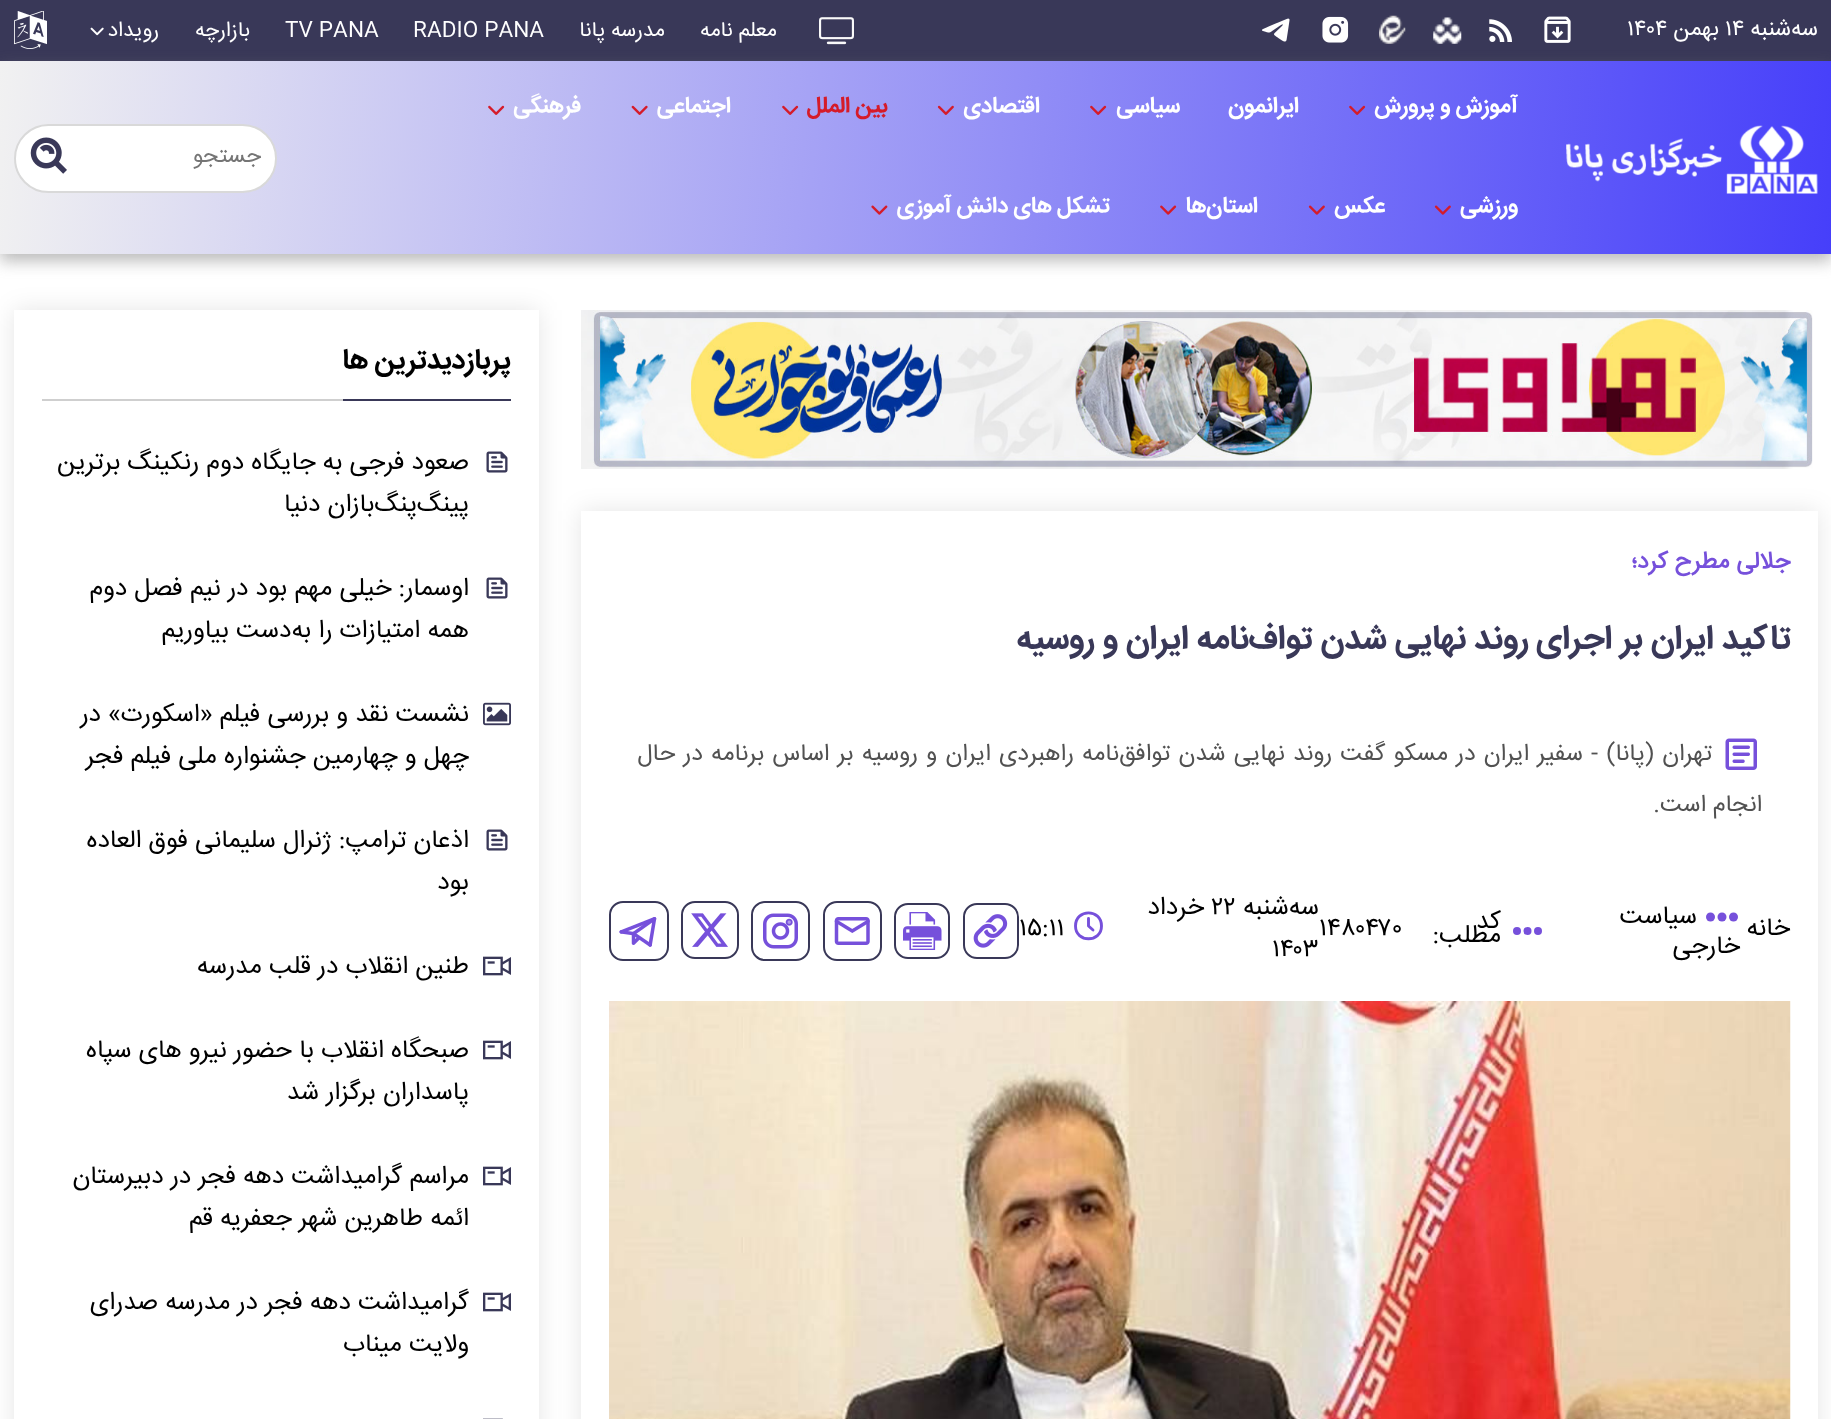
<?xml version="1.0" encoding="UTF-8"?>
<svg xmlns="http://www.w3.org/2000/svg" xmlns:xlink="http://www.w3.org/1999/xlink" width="1831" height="1419">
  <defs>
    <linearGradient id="g1" gradientUnits="userSpaceOnUse" x1="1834" y1="238" x2="-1.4" y2="77"><stop offset="0" stop-color="#463ffa" /><stop offset="1" stop-color="#f1f1f1" /></linearGradient>
    <clipPath id="clip1"><path d="M 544 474 h 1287 v 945 h -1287 z m 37 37 h 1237 v 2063 h -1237 z" clip-rule="evenodd" /></clipPath>
    <clipPath id="clip2"><path d="M 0 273 h 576 v 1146 h -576 z m 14 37 h 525 v 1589 h -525 z" clip-rule="evenodd" /></clipPath>
  </defs>
  <rect width="100%" height="100%" fill="#ffffff" />
  <rect width="1831" height="61" fill="#393858" />
  <image x="1544" y="16" width="27" height="27" xlink:href="image1.png" />
  <image x="1489" y="19" width="23" height="23" xlink:href="image2.png" />
  <rect y="68" width="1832" height="193" fill="#7d7d7d" fill-opacity="0.53" filter="blur(8px)" />
  <image x="1433" y="17" width="29" height="27" xlink:href="image3.png" />
  <image x="1379" y="15" width="27" height="29" xlink:href="image4.png" />
  <image x="1322" y="16" width="27" height="27" xlink:href="image5.png" />
  <image x="1262" y="18" width="28" height="24" xlink:href="image6.png" />
  <image x="819" y="17" width="35" height="28" xlink:href="image7.png" />
  <image x="90" y="27" width="14" height="9" xlink:href="image8.png" />
  <image x="14" y="11" width="33" height="38" xlink:href="image9.png" />
  <rect y="61" width="1831" height="193" fill="url(#g1)" />
  <image x="1566" y="125" width="252" height="69" xlink:href="image10.png" />
  <image x="1349" y="105" width="17" height="10" xlink:href="image11.png" />
  <image x="1090" y="105" width="17" height="10" xlink:href="image12.png" />
  <image x="937" y="105" width="17" height="10" xlink:href="image13.png" />
  <image x="782" y="105" width="17" height="10" xlink:href="image14.png" />
  <image x="631" y="105" width="17" height="10" xlink:href="image15.png" />
  <image x="488" y="105" width="17" height="10" xlink:href="image16.png" />
  <image x="1434" y="205" width="17" height="10" xlink:href="image17.png" />
  <image x="1308" y="205" width="17" height="10" xlink:href="image18.png" />
  <image x="1160" y="205" width="17" height="10" xlink:href="image19.png" />
  <image x="871" y="205" width="17" height="10" xlink:href="image20.png" />
  <rect x="15" y="125" width="261" height="67" rx="33.5" fill="#ffffff" stroke="#d9d9d9" stroke-width="2" />
  <image x="30" y="137" width="37" height="37" xlink:href="image21.png" />
  <image x="581" y="310" width="1232" height="159" xlink:href="image22.png" />
  <g clip-path="url(#clip1)">
    <rect x="581" y="511" width="1237" height="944" fill="#000000" fill-opacity="0.1" filter="blur(12px)" />
  </g>
  <image x="1725" y="738" width="32" height="32" xlink:href="image23.png" />
  <circle cx="1733.5" cy="917" r="4.5" fill="#7650db" />
  <circle cx="1722" cy="917" r="4.5" fill="#7650db" />
  <circle cx="1710.5" cy="917" r="4.5" fill="#7650db" />
  <circle cx="1517" cy="931" r="4" fill="#7650db" />
  <circle cx="1527.5" cy="931" r="4" fill="#7650db" />
  <circle cx="1538" cy="931" r="4" fill="#7650db" />
  <path d="M 1075.5 926 c 0 17 26 17 26 0 c 0 -17.5 -26 -17.5 -26 0 m 13 -7.5 v 7.5 l 4.5 4" fill="none" stroke="#7650db" stroke-width="2.9" stroke-linecap="round" stroke-linejoin="round" />
  <rect x="964" y="904" width="54" height="54" rx="13" fill="none" stroke="#393858" stroke-width="2" />
  <image x="973" y="914" width="35" height="34" xlink:href="image24.png" />
  <rect x="895" y="904" width="54" height="54" rx="13" fill="none" stroke="#393858" stroke-width="2" />
  <image x="903" y="912" width="39" height="38" xlink:href="image25.png" />
  <rect x="824" y="902" width="57" height="58" rx="13" fill="none" stroke="#393858" stroke-width="2" />
  <image x="834" y="917" width="36" height="28" xlink:href="image26.png" />
  <rect x="752" y="902" width="57" height="58" rx="13" fill="none" stroke="#393858" stroke-width="2" />
  <image x="763" y="913" width="35" height="36" xlink:href="image27.png" />
  <rect x="682" y="902" width="56" height="56" rx="13" fill="none" stroke="#393858" stroke-width="2" />
  <image x="691" y="913" width="37" height="34" xlink:href="image28.png" />
  <rect x="610" y="902" width="58" height="58" rx="13" fill="none" stroke="#393858" stroke-width="2" />
  <image x="619" y="917" width="38" height="30" xlink:href="image29.png" />
  <image x="609" y="1001" width="1182" height="418" xlink:href="image30.png" />
  <g clip-path="url(#clip2)">
    <rect x="14" y="310" width="525" height="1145" fill="#000000" fill-opacity="0.1" filter="blur(12px)" />
  </g>
  <rect x="42" y="399" width="301" height="2" fill="#cfcfcf" />
  <rect x="343" y="399" width="168" height="2" fill="#393858" />
  <image x="486" y="451" width="22" height="22" xlink:href="image31.png" />
  <image x="486" y="577" width="22" height="22" xlink:href="image31.png" />
  <image x="483" y="702" width="28" height="24" xlink:href="image32.png" />
  <image x="486" y="829" width="22" height="22" xlink:href="image31.png" />
  <image x="483" y="956" width="28" height="20" xlink:href="image33.png" />
  <image x="483" y="1040" width="28" height="20" xlink:href="image33.png" />
  <image x="483" y="1166" width="28" height="20" xlink:href="image33.png" />
  <image x="483" y="1292" width="28" height="20" xlink:href="image33.png" />
  <image x="483" y="1418" width="20" height="1" xlink:href="image34.png" />
  <text x="1818" y="35" style="font-family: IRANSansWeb; font-size: 22.5px; direction: rtl; fill: #ffffff">سه‌شنبه</text>
  <text x="1725" y="35" style="font-family: IRANSansWeb; font-size: 22.5px; fill: #ffffff">۱۴</text>
  <text x="1719" y="35" style="font-family: IRANSansWeb; font-size: 22.5px; direction: rtl; fill: #ffffff">بهمن</text>
  <text x="1627" y="35" style="font-family: IRANSansWeb; font-size: 22.5px; fill: #ffffff">۱۴۰۴</text>
  <text x="777" y="36" style="font-family: IRANSansWeb; font-size: 21px; direction: rtl; fill: #ffffff">معلم نامه</text>
  <text x="665" y="36" style="font-family: IRANSansWeb; font-size: 21px; direction: rtl; fill: #ffffff">مدرسه پانا</text>
  <text x="413" y="36" style="font-family: IRANSansWeb; font-size: 21px; fill: #ffffff">RADIO PANA</text>
  <text x="285" y="36" style="font-family: IRANSansWeb; font-size: 21px; fill: #ffffff">TV PANA</text>
  <text x="250" y="36" style="font-family: IRANSansWeb; font-size: 21px; direction: rtl; fill: #ffffff">بازارچه</text>
  <text x="159" y="36" style="font-family: IRANSansWeb; font-size: 21px; direction: rtl; fill: #ffffff">رویداد</text>
  <text x="1518" y="112" style="font-family: 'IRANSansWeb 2'; font-size: 22.5px; font-weight: bold; direction: rtl; fill: #ffffff">آموزش و پرورش</text>
  <text x="1299" y="112" style="font-family: 'IRANSansWeb 2'; font-size: 22.5px; font-weight: bold; direction: rtl; fill: #ffffff">ایرانمون</text>
  <text x="1180" y="112" style="font-family: 'IRANSansWeb 2'; font-size: 22.5px; font-weight: bold; direction: rtl; fill: #ffffff">سیاسی</text>
  <text x="1040" y="112" style="font-family: 'IRANSansWeb 2'; font-size: 22.5px; font-weight: bold; direction: rtl; fill: #ffffff">اقتصادی</text>
  <text x="888" y="112" style="font-family: 'IRANSansWeb 2'; font-size: 22.5px; font-weight: bold; direction: rtl; fill: #d51b29">بین الملل</text>
  <text x="731" y="112" style="font-family: 'IRANSansWeb 2'; font-size: 22.5px; font-weight: bold; direction: rtl; fill: #ffffff">اجتماعی</text>
  <text x="581" y="112" style="font-family: 'IRANSansWeb 2'; font-size: 22.5px; font-weight: bold; direction: rtl; fill: #ffffff">فرهنگی</text>
  <text x="1518" y="212" style="font-family: 'IRANSansWeb 2'; font-size: 22.5px; font-weight: bold; direction: rtl; fill: #ffffff">ورزشی</text>
  <text x="1385" y="212" style="font-family: 'IRANSansWeb 2'; font-size: 22.5px; font-weight: bold; direction: rtl; fill: #ffffff">عکس</text>
  <text x="1258" y="212" style="font-family: 'IRANSansWeb 2'; font-size: 22.5px; font-weight: bold; direction: rtl; fill: #ffffff">استان‌ها</text>
  <text x="1110" y="212" style="font-family: 'IRANSansWeb 2'; font-size: 22.5px; font-weight: bold; direction: rtl; fill: #ffffff">تشکل های دانش آموزی</text>
  <text x="261" y="162" style="font-family: IRANSansWeb; font-size: 22.5px; direction: rtl; fill: #757575">جستجو</text>
  <text x="1790" y="568" style="font-family: IRANSansWeb; font-size: 23.8px; font-weight: bold; direction: rtl; fill: #7650db">جلالی مطرح کرد؛</text>
  <text x="1791" y="648" style="font-family: 'IRANSansWeb 2'; font-size: 33.6px; font-weight: bold; direction: rtl; fill: #393858">تاکید ایران بر اجرای روند نهایی شدن تواف‌نامه ایران و روسیه</text>
  <text x="1712" y="760" word-spacing="1.5" style="font-family: IRANSansWeb; font-size: 23.8px; direction: rtl; fill: #515151">تهران (پانا) - سفیر ایران در مسکو گفت روند نهایی شدن توافق‌نامه راهبردی ایران و روسیه بر اساس برنامه در حال</text>
  <text x="1762" y="811" style="font-family: IRANSansWeb; font-size: 23.8px; direction: rtl; fill: #515151">انجام است.</text>
  <text x="1790" y="935" style="font-family: IRANSansWeb; font-size: 25.25px; direction: rtl; fill: #000000">خانه</text>
  <text x="1697" y="923" style="font-family: IRANSansWeb; font-size: 25.25px; direction: rtl; fill: #000000">سیاست</text>
  <text x="1740" y="953" style="font-family: IRANSansWeb; font-size: 25.25px; direction: rtl; fill: #000000">خارجی</text>
  <text x="1501" y="928" style="font-family: IRANSansWeb; font-size: 25.25px; direction: rtl; fill: #000000">کد</text>
  <text x="1319" y="935" style="font-family: IRANSansWeb; font-size: 25.25px; fill: #000000">۱۴۸۰۴۷۰</text>
  <text x="1501" y="942" style="font-family: IRANSansWeb; font-size: 25.25px; direction: rtl; fill: #000000">مطلب:</text>
  <text x="1319" y="914" style="font-family: IRANSansWeb; font-size: 25.25px; direction: rtl; fill: #000000">سه‌شنبه</text>
  <text x="1211" y="914" style="font-family: IRANSansWeb; font-size: 25.25px; fill: #000000">۲۲</text>
  <text x="1204" y="914" style="font-family: IRANSansWeb; font-size: 25.25px; direction: rtl; fill: #000000">خرداد</text>
  <text x="1019" y="935" style="font-family: IRANSansWeb; font-size: 25.25px; fill: #000000">۱۵:۱۱</text>
  <text x="1272" y="956" style="font-family: IRANSansWeb; font-size: 25.25px; fill: #000000">۱۴۰۳</text>
  <text x="511" y="368" style="font-family: 'IRANSansWeb 2'; font-size: 28px; font-weight: bold; direction: rtl; fill: #000000">پربازدیدترین ها</text>
  <text x="469" y="469" style="font-family: IRANSansWeb; font-size: 25.25px; direction: rtl; fill: #000000">صعود فرجی به جایگاه دوم رنکینگ برترین</text>
  <text x="469" y="511" style="font-family: IRANSansWeb; font-size: 25.25px; direction: rtl; fill: #000000">پینگ‌پنگ‌بازان دنیا</text>
  <text x="469" y="595" style="font-family: IRANSansWeb; font-size: 25.25px; direction: rtl; fill: #000000">اوسمار: خیلی مهم بود در نیم فصل دوم</text>
  <text x="469" y="637" style="font-family: IRANSansWeb; font-size: 25.25px; direction: rtl; fill: #000000">همه امتیازات را به‌دست بیاوریم</text>
  <text x="469" y="721" style="font-family: IRANSansWeb; font-size: 25.25px; direction: rtl; fill: #000000">نشست نقد و بررسی فیلم «اسکورت» در</text>
  <text x="469" y="763" style="font-family: IRANSansWeb; font-size: 25.25px; direction: rtl; fill: #000000">چهل و چهارمین جشنواره ملی فیلم فجر</text>
  <text x="469" y="847" style="font-family: IRANSansWeb; font-size: 25.25px; direction: rtl; fill: #000000">اذعان ترامپ: ژنرال سلیمانی فوق العاده</text>
  <text x="469" y="889" style="font-family: IRANSansWeb; font-size: 25.25px; direction: rtl; fill: #000000">بود</text>
  <text x="469" y="973" style="font-family: IRANSansWeb; font-size: 25.25px; direction: rtl; fill: #000000">طنین انقلاب در قلب مدرسه</text>
  <text x="469" y="1057" style="font-family: IRANSansWeb; font-size: 25.25px; direction: rtl; fill: #000000">صبحگاه انقلاب با حضور نیرو های سپاه</text>
  <text x="469" y="1099" style="font-family: IRANSansWeb; font-size: 25.25px; direction: rtl; fill: #000000">پاسداران برگزار شد</text>
  <text x="469" y="1183" style="font-family: IRANSansWeb; font-size: 25.25px; direction: rtl; fill: #000000">مراسم گرامیداشت دهه فجر در دبیرستان</text>
  <text x="469" y="1225" style="font-family: IRANSansWeb; font-size: 25.25px; direction: rtl; fill: #000000">ائمه طاهرین شهر جعفریه قم</text>
  <text x="469" y="1309" style="font-family: IRANSansWeb; font-size: 25.25px; direction: rtl; fill: #000000">گرامیداشت دهه فجر در مدرسه صدرای</text>
  <text x="469" y="1351" style="font-family: IRANSansWeb; font-size: 25.25px; direction: rtl; fill: #000000">ولایت میناب</text>
</svg>
